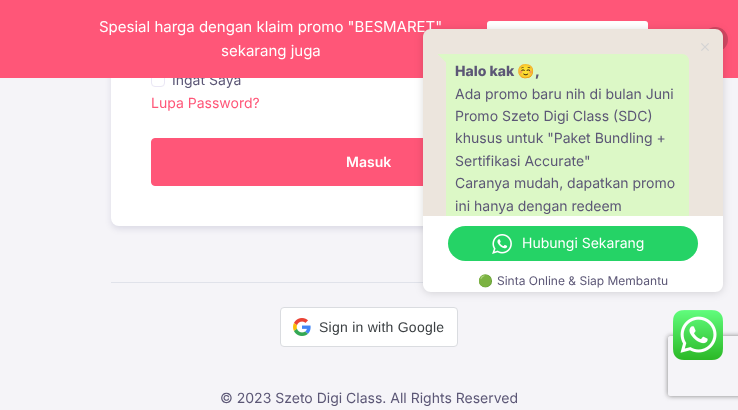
<?xml version="1.0" encoding="UTF-8"?>
<svg xmlns="http://www.w3.org/2000/svg" xmlns:xlink="http://www.w3.org/1999/xlink" width="738" height="410">
  <defs>
    <clipPath id="clip1"><path d="M 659 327 h 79 v 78 h -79 z m 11 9 h 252 c 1 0 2 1 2 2 v 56 c 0 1 -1 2 -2 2 h -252 c -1 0 -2 -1 -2 -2 v -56 c 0 -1 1 -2 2 -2 z" clip-rule="evenodd" /></clipPath>
  </defs>
  <rect width="100%" height="100%" fill="#f5f4f8" />
  <rect x="111" y="-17" width="516" height="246" rx="8" fill="#030047" fill-opacity="0.1" filter="blur(3px)" />
  <rect x="111" y="-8" width="516" height="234" rx="8" fill="#ffffff" />
  <rect x="151.5" y="73.5" width="13" height="13" rx="3.5" fill="none" stroke="#eae7f5" />
  <rect x="151.5" y="138.5" width="435" height="47" rx="3.5" fill="#ff5678" stroke="#ff5678" />
  <rect x="111" y="282" width="312" height="1" fill="#e0e2ea" />
  <rect x="280.5" y="307.5" width="177" height="39" rx="3.5" fill="#ffffff" stroke="#dadce0" />
  <image x="293" y="318" width="18" height="18" xlink:href="image1.png" />
  <g clip-path="url(#clip1)">
    <rect x="668" y="336" width="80" height="60" rx="2" fill="#808080" filter="blur(2.5px)" />
  </g>
  <image x="673" y="310" width="50" height="50" xlink:href="image4.png" />
  <text x="172" y="85" style="font-family: Inter; font-size: 14px; fill: #5c5776">Ingat Saya</text>
  <rect width="738" height="78" fill="#ff5678" />
  <circle cx="715.5" cy="39.5" r="12.5" fill="#d14762" />
  <rect x="487" y="21" width="161" height="35" rx="3" fill="#ffffff" />
  <text x="221" y="56" style="font-family: Inter; font-size: 15px; fill: #ffffff">sekarang juga</text>
  <text x="99" y="32" style="font-family: Inter; font-size: 15px; fill: #ffffff">Spesial harga dengan klaim promo "BESMARET"</text>
  <text x="151" y="108" style="font-family: Inter; font-size: 14px; fill: #ff5678">Lupa Password?</text>
  <text x="346" y="167" style="font-family: Inter; font-size: 14px; font-weight: 600; fill: #ffffff">Masuk</text>
  <text x="319" y="332" style="font-family: Liberation Sans; font-size: 14px; letter-spacing: 0.25px; fill: #3c4043">Sign in with Google</text>
  <rect x="423" y="30" width="300" height="263" rx="8" fill="#000000" fill-opacity="0.14" filter="blur(4.5px)" />
  <path d="M 431 29 h 284 c 4.5 0 8 3.5 8 8 v 179 h -300 v -179 c 0 -4.5 3.5 -8 8 -8 z" fill="#ece5dd" />
  <image x="701" y="43" width="8" height="8" xlink:href="image2.png" />
  <path d="M 446 54 h 236 c 4 0 7 3 7 7 v 155 h -243 z" fill="#dcf8c6" />
  <path d="M 438 54.5 l 8.5 8.5 v -9 h -8.5 z" fill="#dcf8c6" />
  <text x="455" y="76" style="font-family: Inter; font-size: 14px; font-weight: 800; fill: #5c5776">Halo kak</text>
  <text x="517" y="76" style="font-family: Noto Color Emoji; font-size: 14px; font-weight: bold; fill: #5c5776">☺️</text>
  <text x="535" y="76" style="font-family: Inter; font-size: 14px; font-weight: 800; fill: #5c5776">,</text>
  <text x="455" y="99" style="font-family: Inter; font-size: 14px; fill: #5c5776">Ada promo baru nih di bulan Juni</text>
  <text x="455" y="121" style="font-family: Inter; font-size: 14px; fill: #5c5776">Promo Szeto Digi Class (SDC)</text>
  <text x="455" y="143" style="font-family: Inter; font-size: 14px; fill: #5c5776">khusus untuk "Paket Bundling +</text>
  <text x="455" y="166" style="font-family: Inter; font-size: 14px; fill: #5c5776">Sertifikasi Accurate"</text>
  <text x="455" y="188" style="font-family: Inter; font-size: 14px; fill: #5c5776">Caranya mudah, dapatkan promo</text>
  <text x="455" y="211" style="font-family: Inter; font-size: 14px; fill: #5c5776">ini hanya dengan redeem</text>
  <rect x="423" y="216" width="300" height="53" fill="#ffffff" />
  <rect x="448" y="226" width="250" height="35" rx="17.5" fill="#25d366" />
  <image x="492" y="234" width="20" height="20" xlink:href="image3.png" />
  <text x="522" y="248" style="font-family: Inter; font-size: 14px; fill: #ffffff">Hubungi Sekarang</text>
  <path d="M 423 269 h 300 v 15 c 0 4.5 -3.5 8 -8 8 h -284 c -4.5 0 -8 -3.5 -8 -8 z" fill="#ffffff" />
  <text x="478" y="285" style="font-family: Noto Color Emoji; font-size: 12px; fill: #5c5776">🟢</text>
  <text x="497" y="285" style="font-family: Inter; font-size: 12px; fill: #5c5776">Sinta Online &amp; Siap Membantu</text>
  <text x="220" y="403" style="font-family: Inter; font-size: 14px; fill: #5c5776">© 2023 Szeto Digi Class. All Rights Reserved</text>
</svg>
